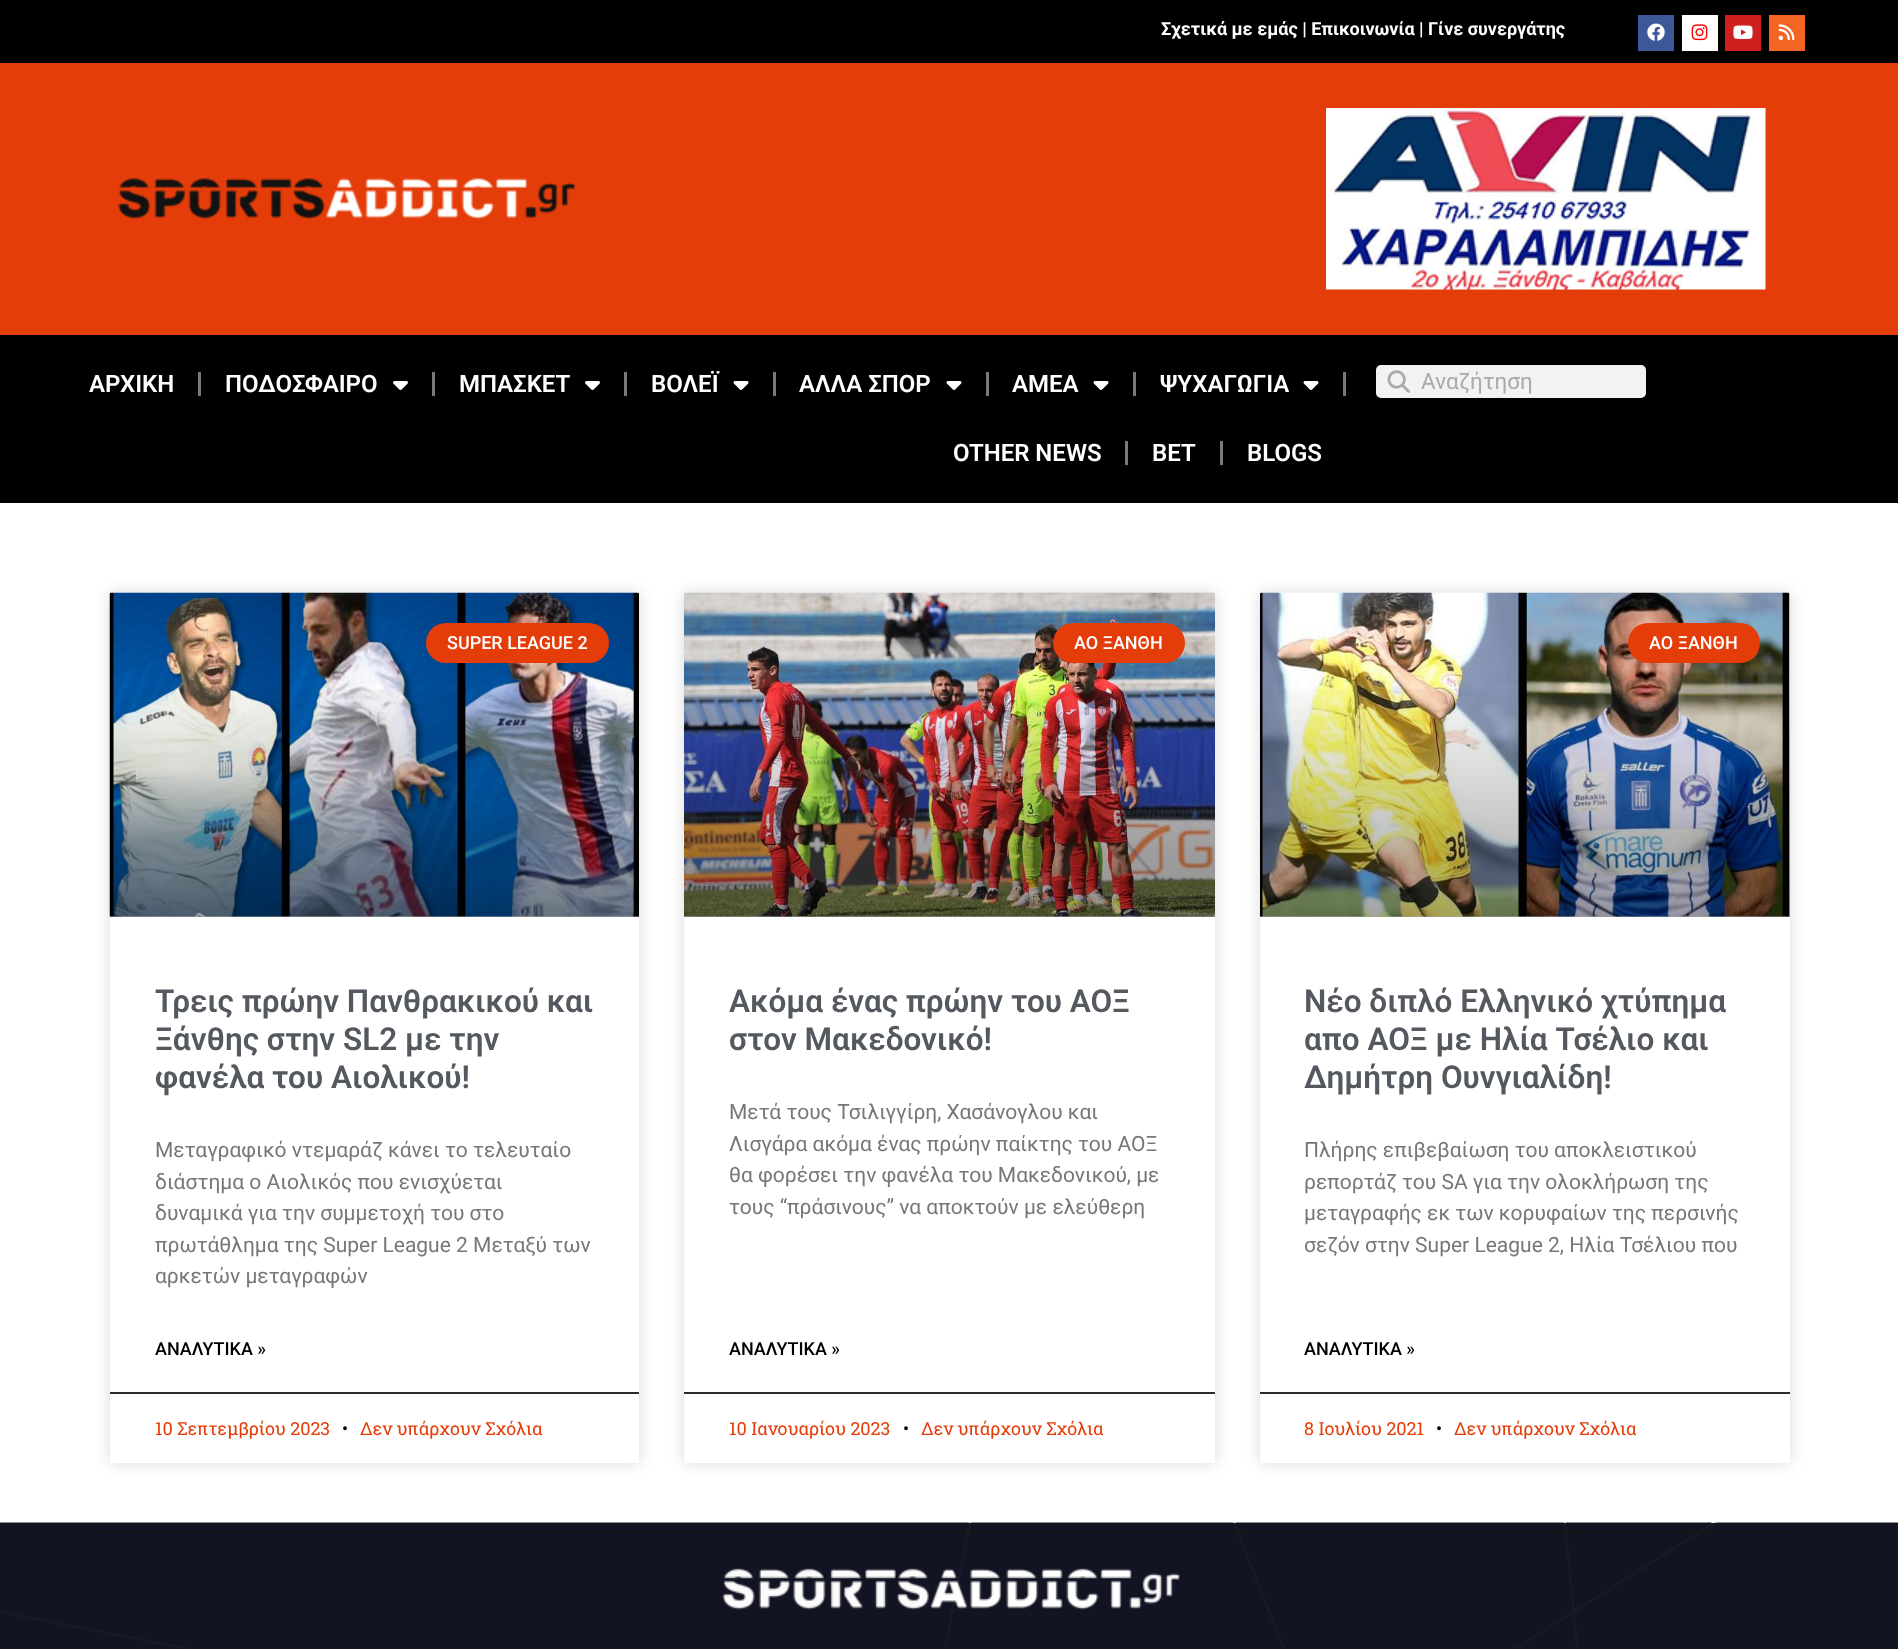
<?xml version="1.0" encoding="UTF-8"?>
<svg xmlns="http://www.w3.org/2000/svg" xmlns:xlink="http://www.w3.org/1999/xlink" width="1898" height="1649">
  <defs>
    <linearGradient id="g1" gradientUnits="userSpaceOnUse" x1="374" y1="917" x2="374" y2="593"><stop offset="0" stop-color="#000000" stop-opacity="0.35" /><stop offset="0.75" stop-color="#000000" stop-opacity="0" /></linearGradient>
    <linearGradient id="g2" gradientUnits="userSpaceOnUse" x1="950" y1="917" x2="950" y2="593"><stop offset="0" stop-color="#000000" stop-opacity="0.35" /><stop offset="0.75" stop-color="#000000" stop-opacity="0" /></linearGradient>
    <linearGradient id="g3" gradientUnits="userSpaceOnUse" x1="1525" y1="917" x2="1525" y2="593"><stop offset="0" stop-color="#000000" stop-opacity="0.35" /><stop offset="0.75" stop-color="#000000" stop-opacity="0" /></linearGradient>
  </defs>
  <rect width="100%" height="100%" fill="#ffffff" />
  <rect width="1898" height="63" fill="#000000" />
  <rect x="1638" y="15" width="36" height="36" fill="#3b5998" />
  <image x="1647" y="23" width="18" height="18" xlink:href="image1.png" />
  <rect x="1682" y="15" width="36" height="36" fill="#ffffff" />
  <image x="1691" y="24" width="17" height="17" xlink:href="image2.png" />
  <rect x="1725" y="15" width="36" height="36" fill="#cd201f" />
  <image x="1733" y="25" width="20" height="14" xlink:href="image3.png" />
  <rect x="1769" y="15" width="36" height="36" fill="#f26522" />
  <image x="1778" y="24" width="17" height="17" xlink:href="image4.png" />
  <rect y="63" width="1898" height="272" fill="#e53d09" />
  <image x="118" y="178" width="458" height="42" xlink:href="image5.png" />
  <image x="1326" y="108" width="440" height="182" xlink:href="image6.png" />
  <rect y="335" width="1898" height="168" fill="#000000" />
  <rect x="198" y="372" width="3" height="24" fill="#7a7a7a" />
  <image x="393" y="381" width="15" height="9" xlink:href="image7.png" />
  <rect x="432" y="372" width="3" height="24" fill="#7a7a7a" />
  <image x="585" y="381" width="15" height="9" xlink:href="image7.png" />
  <rect x="624" y="372" width="3" height="24" fill="#7a7a7a" />
  <image x="733" y="381" width="16" height="9" xlink:href="image8.png" />
  <rect x="773" y="372" width="3" height="24" fill="#7a7a7a" />
  <image x="946" y="381" width="16" height="9" xlink:href="image8.png" />
  <rect x="986" y="372" width="3" height="24" fill="#7a7a7a" />
  <image x="1093" y="381" width="16" height="9" xlink:href="image8.png" />
  <rect x="1133" y="372" width="3" height="24" fill="#7a7a7a" />
  <image x="1303" y="381" width="16" height="9" xlink:href="image8.png" />
  <rect x="1343" y="372" width="3" height="24" fill="#7a7a7a" />
  <rect x="1125" y="441" width="3" height="24" fill="#7a7a7a" />
  <rect x="1220" y="441" width="3" height="24" fill="#7a7a7a" />
  <rect x="1376" y="365" width="270" height="33" rx="5" fill="#f1f2f3" />
  <image x="1387" y="370" width="23" height="23" xlink:href="image9.png" />
  <rect x="110" y="593" width="529" height="870" rx="1.5" fill="#000000" fill-opacity="0.15" filter="blur(7.5px)" />
  <rect x="110" y="593" width="529" height="870" rx="1.5" fill="#ffffff" />
  <image x="109" y="592" width="530" height="325" xlink:href="image10.png" />
  <rect x="110" y="689" width="529" height="228" fill="url(#g1)" />
  <rect x="426" y="623" width="183" height="40" rx="20" fill="#e53d09" />
  <rect x="110" y="1392" width="529" height="2" fill="#2d2b2b" />
  <rect x="684" y="593" width="531" height="870" rx="1.5" fill="#000000" fill-opacity="0.15" filter="blur(7.5px)" />
  <rect x="684" y="593" width="531" height="870" rx="1.5" fill="#ffffff" />
  <image x="684" y="592" width="531" height="325" xlink:href="image11.png" />
  <rect x="684" y="689" width="531" height="228" fill="url(#g2)" />
  <rect x="1053" y="623" width="132" height="40" rx="20" fill="#e53d09" />
  <rect x="684" y="1392" width="531" height="2" fill="#2d2b2b" />
  <rect x="1260" y="593" width="530" height="870" rx="1.5" fill="#000000" fill-opacity="0.15" filter="blur(7.5px)" />
  <rect x="1260" y="593" width="530" height="870" rx="1.5" fill="#ffffff" />
  <image x="1260" y="592" width="530" height="325" xlink:href="image12.png" />
  <rect x="1260" y="689" width="530" height="228" fill="url(#g3)" />
  <rect x="1628" y="623" width="132" height="40" rx="20" fill="#e53d09" />
  <rect x="1260" y="1392" width="530" height="2" fill="#2d2b2b" />
  <image x="0" y="1522" width="1898" height="127" xlink:href="image13.png" />
  <rect x="95" y="1530" width="1710" height="2" fill="#161616" />
  <image x="722" y="1568" width="459" height="42" xlink:href="image14.png" />
  <text x="1161" y="35" style="font-family: Roboto; font-size: 18px; font-weight: bold; fill: #ffffff">Σχετικά με εμάς | Επικοινωνία | Γίνε συνεργάτης</text>
  <text x="89" y="392" style="font-family: Roboto; font-size: 24px; font-weight: 600; fill: #ffffff">ΑΡΧΙΚΗ</text>
  <text x="225" y="392" style="font-family: Roboto; font-size: 24px; font-weight: 600; fill: #ffffff">ΠΟΔΟΣΦΑΙΡΟ</text>
  <text x="459" y="392" style="font-family: Roboto; font-size: 24px; font-weight: 600; fill: #ffffff">ΜΠΑΣΚΕΤ</text>
  <text x="651" y="392" style="font-family: Roboto; font-size: 24px; font-weight: 600; fill: #ffffff">ΒΟΛΕΪ</text>
  <text x="799" y="392" style="font-family: Roboto; font-size: 24px; font-weight: 600; fill: #ffffff">ΑΛΛΑ ΣΠΟΡ</text>
  <text x="1012" y="392" style="font-family: Roboto; font-size: 24px; font-weight: 600; fill: #ffffff">ΑΜΕΑ</text>
  <text x="1160" y="392" style="font-family: Roboto; font-size: 24px; font-weight: 600; fill: #ffffff">ΨΥΧΑΓΩΓΙΑ</text>
  <text x="953" y="461" style="font-family: Roboto; font-size: 24px; font-weight: 600; fill: #ffffff">OTHER NEWS</text>
  <text x="1152" y="461" style="font-family: Roboto; font-size: 24px; font-weight: 600; fill: #ffffff">BET</text>
  <text x="1247" y="461" style="font-family: Roboto; font-size: 24px; font-weight: 600; fill: #ffffff">BLOGS</text>
  <text x="1421" y="389" style="font-family: Roboto; font-size: 22.5px; fill: #aaaaaa">Αναζήτηση</text>
  <text x="447" y="649" style="font-family: Roboto; font-size: 18px; font-weight: 500; fill: #ffffff">SUPER LEAGUE 2</text>
  <text x="155" y="1012" style="font-family: Roboto; font-size: 31.5px; font-weight: 600; fill: #54595f">Τρεις πρώην Πανθρακικού και</text>
  <text x="155" y="1050" style="font-family: Roboto; font-size: 31.5px; font-weight: 600; fill: #54595f">Ξάνθης στην SL2 με την</text>
  <text x="155" y="1088" style="font-family: Roboto; font-size: 31.5px; font-weight: 600; fill: #54595f">φανέλα του Αιολικού!</text>
  <text x="155" y="1157" style="font-family: Roboto; font-size: 21px; fill: #777777">Μεταγραφικό ντεμαράζ κάνει το τελευταίο</text>
  <text x="155" y="1189" style="font-family: Roboto; font-size: 21px; fill: #777777">διάστημα ο Αιολικός που ενισχύεται</text>
  <text x="155" y="1220" style="font-family: Roboto; font-size: 21px; fill: #777777">δυναμικά για την συμμετοχή του στο</text>
  <text x="155" y="1252" style="font-family: Roboto; font-size: 21px; fill: #777777">πρωτάθλημα της Super League 2 Μεταξύ των</text>
  <text x="155" y="1283" style="font-family: Roboto; font-size: 21px; fill: #777777">αρκετών μεταγραφών</text>
  <text x="155" y="1355" style="font-family: Roboto; font-size: 18px; font-weight: 500; fill: #000000">ΑΝΑΛΥΤΙΚΑ »</text>
  <text x="155" y="1435" style="font-family: Roboto Slab; font-size: 18px; fill: #e53d09">10 Σεπτεμβρίου 2023</text>
  <text x="342" y="1435" style="font-family: Roboto Slab; font-size: 18px; fill: #000000">•</text>
  <text x="360" y="1435" style="font-family: Roboto Slab; font-size: 18px; fill: #e53d09">Δεν υπάρχουν Σχόλια</text>
  <text x="1074" y="649" style="font-family: Roboto; font-size: 18px; font-weight: 500; fill: #ffffff">ΑΟ ΞΑΝΘΗ</text>
  <text x="729" y="1012" style="font-family: Roboto; font-size: 31.5px; font-weight: 600; fill: #54595f">Ακόμα ένας πρώην του ΑΟΞ</text>
  <text x="729" y="1050" style="font-family: Roboto; font-size: 31.5px; font-weight: 600; fill: #54595f">στον Μακεδονικό!</text>
  <text x="729" y="1119" style="font-family: Roboto; font-size: 21px; fill: #777777">Μετά τους Τσιλιγγίρη, Χασάνογλου και</text>
  <text x="729" y="1151" style="font-family: Roboto; font-size: 21px; fill: #777777">Λισγάρα ακόμα ένας πρώην παίκτης του ΑΟΞ</text>
  <text x="729" y="1182" style="font-family: Roboto; font-size: 21px; fill: #777777">θα φορέσει την φανέλα του Μακεδονικού, με</text>
  <text x="729" y="1214" style="font-family: Roboto; font-size: 21px; fill: #777777">τους “πράσινους” να αποκτούν με ελεύθερη</text>
  <text x="729" y="1355" style="font-family: Roboto; font-size: 18px; font-weight: 500; fill: #000000">ΑΝΑΛΥΤΙΚΑ »</text>
  <text x="729" y="1435" style="font-family: Roboto Slab; font-size: 18px; fill: #e53d09">10 Ιανουαρίου 2023</text>
  <text x="903" y="1435" style="font-family: Roboto Slab; font-size: 18px; fill: #000000">•</text>
  <text x="921" y="1435" style="font-family: Roboto Slab; font-size: 18px; fill: #e53d09">Δεν υπάρχουν Σχόλια</text>
  <text x="1649" y="649" style="font-family: Roboto; font-size: 18px; font-weight: 500; fill: #ffffff">ΑΟ ΞΑΝΘΗ</text>
  <text x="1304" y="1012" style="font-family: Roboto; font-size: 31.5px; font-weight: 600; fill: #54595f">Νέο διπλό Ελληνικό χτύπημα</text>
  <text x="1304" y="1050" style="font-family: Roboto; font-size: 31.5px; font-weight: 600; fill: #54595f">απο ΑΟΞ με Ηλία Τσέλιο και</text>
  <text x="1304" y="1088" style="font-family: Roboto; font-size: 31.5px; font-weight: 600; fill: #54595f">Δημήτρη Ουνγιαλίδη!</text>
  <text x="1304" y="1157" style="font-family: Roboto; font-size: 21px; fill: #777777">Πλήρης επιβεβαίωση του αποκλειστικού</text>
  <text x="1304" y="1189" style="font-family: Roboto; font-size: 21px; fill: #777777">ρεπορτάζ του SA για την ολοκλήρωση της</text>
  <text x="1304" y="1220" style="font-family: Roboto; font-size: 21px; fill: #777777">μεταγραφής εκ των κορυφαίων της περσινής</text>
  <text x="1304" y="1252" style="font-family: Roboto; font-size: 21px; fill: #777777">σεζόν στην Super League 2, Ηλία Τσέλιου που</text>
  <text x="1304" y="1355" style="font-family: Roboto; font-size: 18px; font-weight: 500; fill: #000000">ΑΝΑΛΥΤΙΚΑ »</text>
  <text x="1304" y="1435" style="font-family: Roboto Slab; font-size: 18px; fill: #e53d09">8 Ιουλίου 2021</text>
  <text x="1436" y="1435" style="font-family: Roboto Slab; font-size: 18px; fill: #000000">•</text>
  <text x="1454" y="1435" style="font-family: Roboto Slab; font-size: 18px; fill: #e53d09">Δεν υπάρχουν Σχόλια</text>
</svg>
